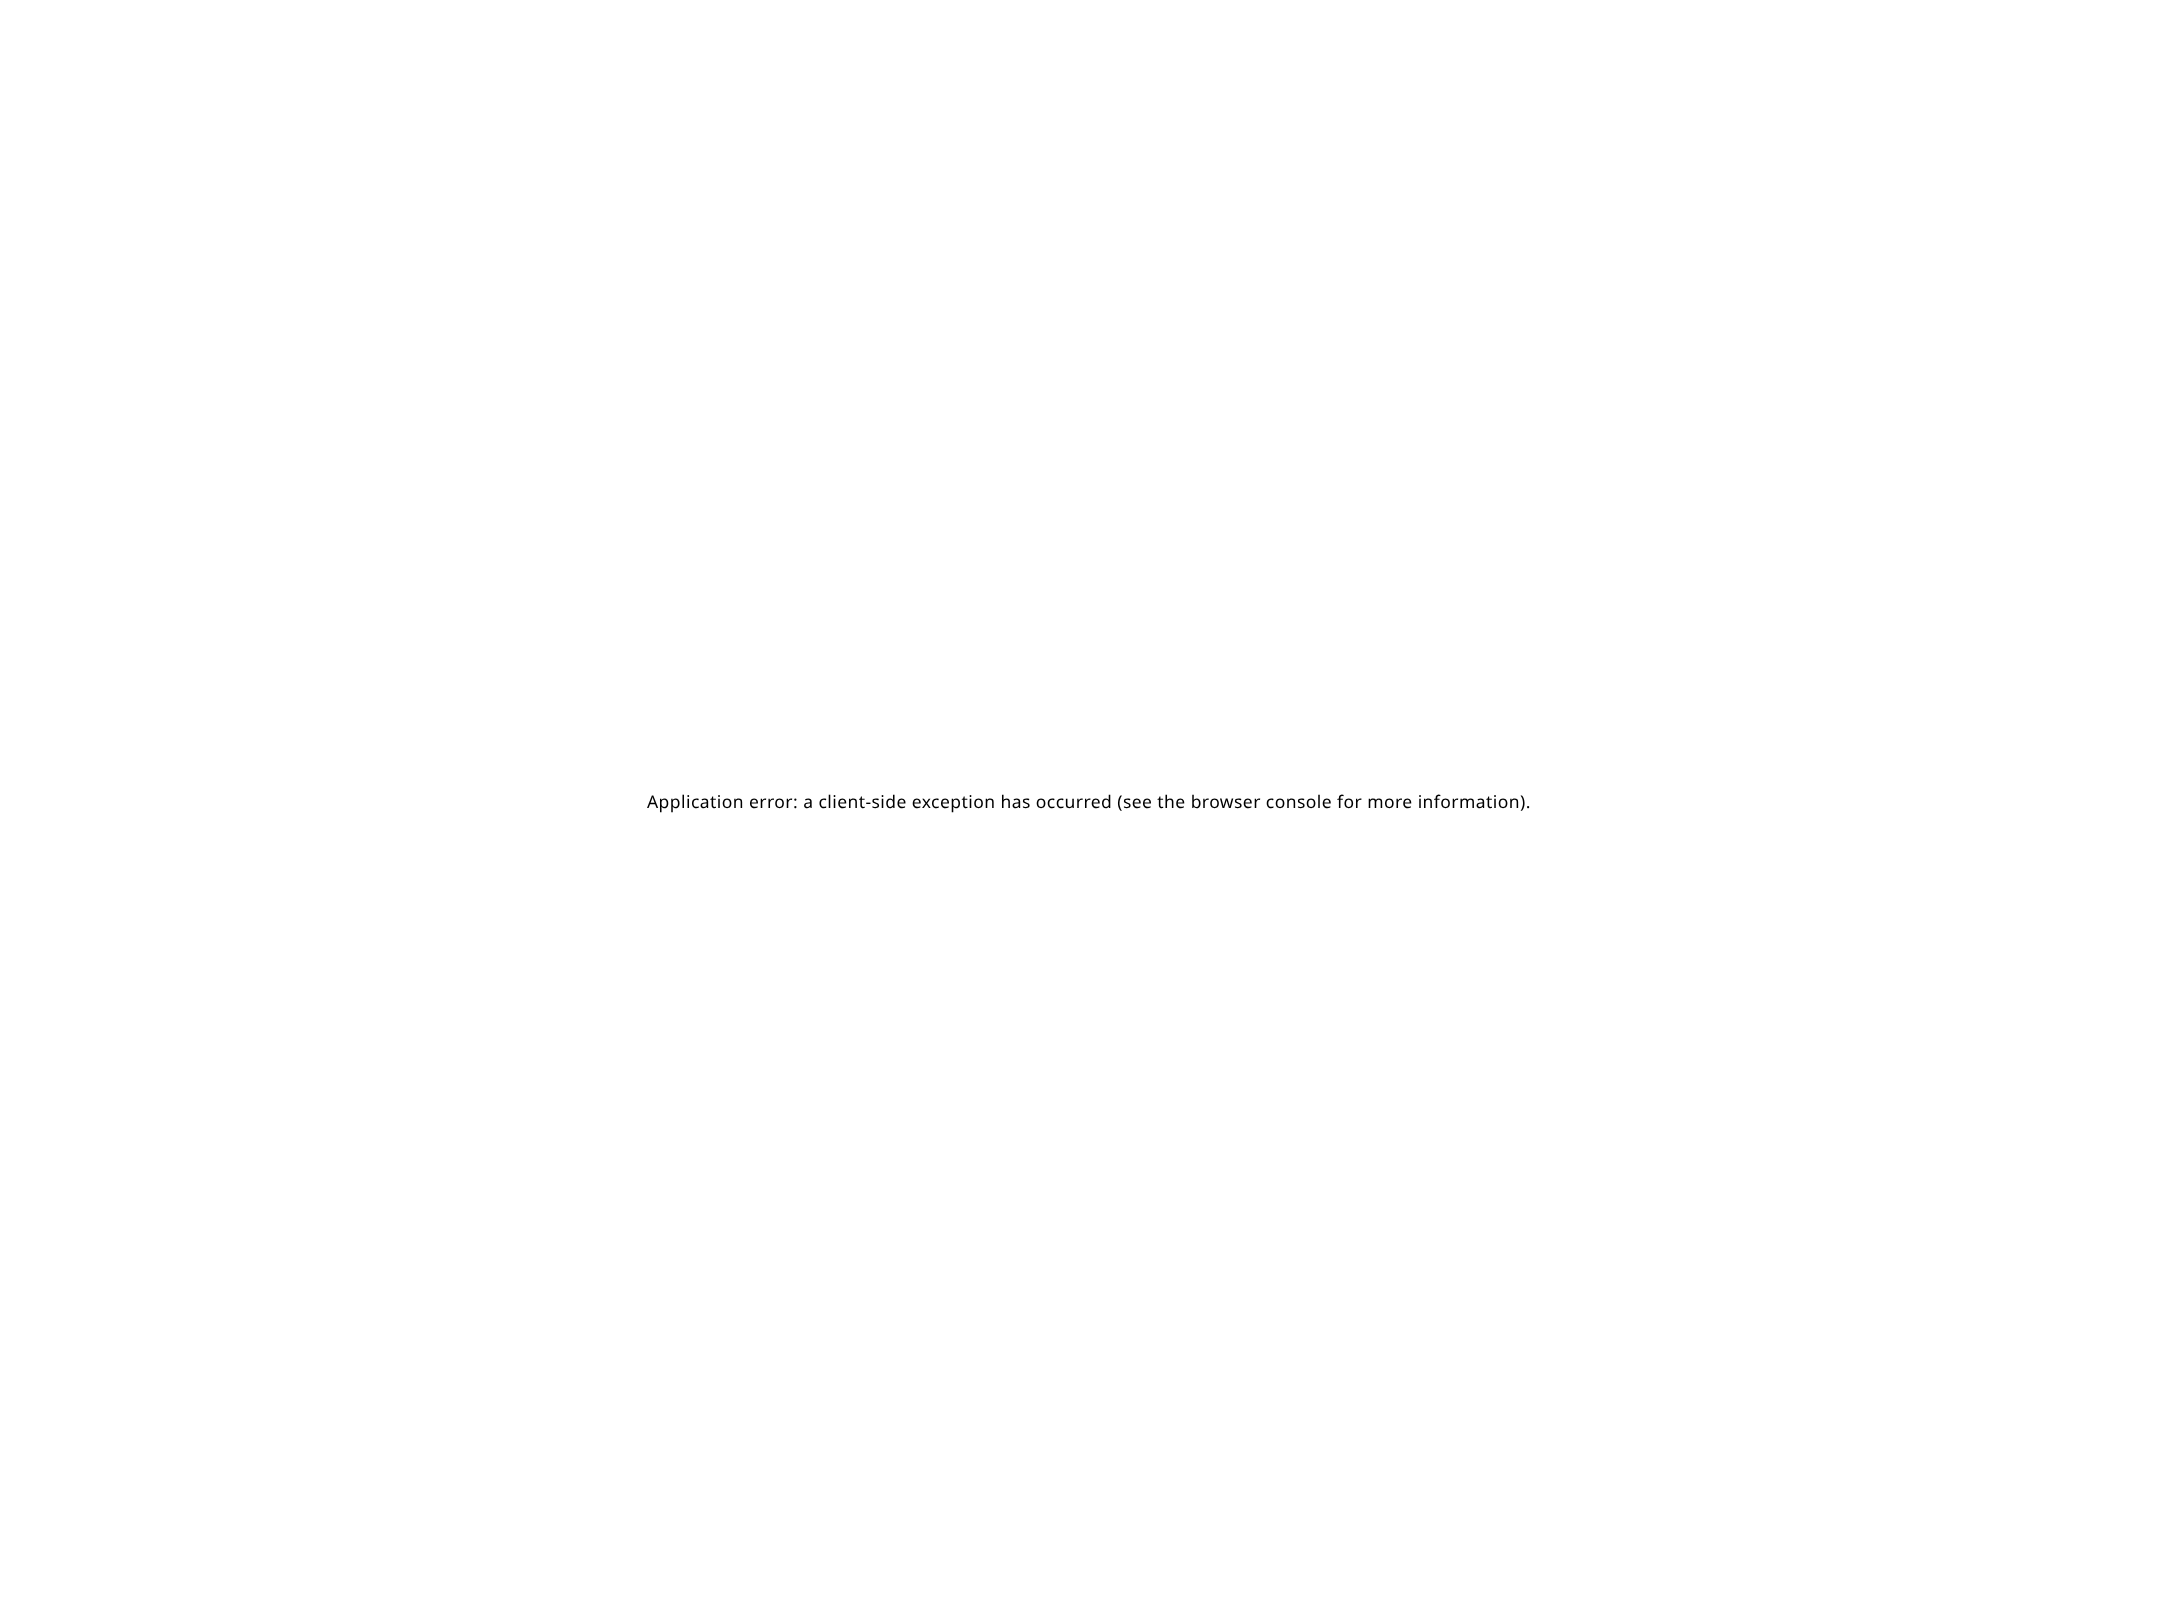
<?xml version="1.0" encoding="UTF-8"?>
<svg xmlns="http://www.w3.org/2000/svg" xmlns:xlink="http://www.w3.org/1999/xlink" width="2177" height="1602">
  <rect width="100%" height="100%" fill="#ffffff" />
  <text x="647" y="808" style="font-family: Noto Sans; font-size: 17.5px; letter-spacing: 0.44px; fill: #000000">Application error: a client-side exception has occurred (see the browser console for more information).</text>
</svg>
